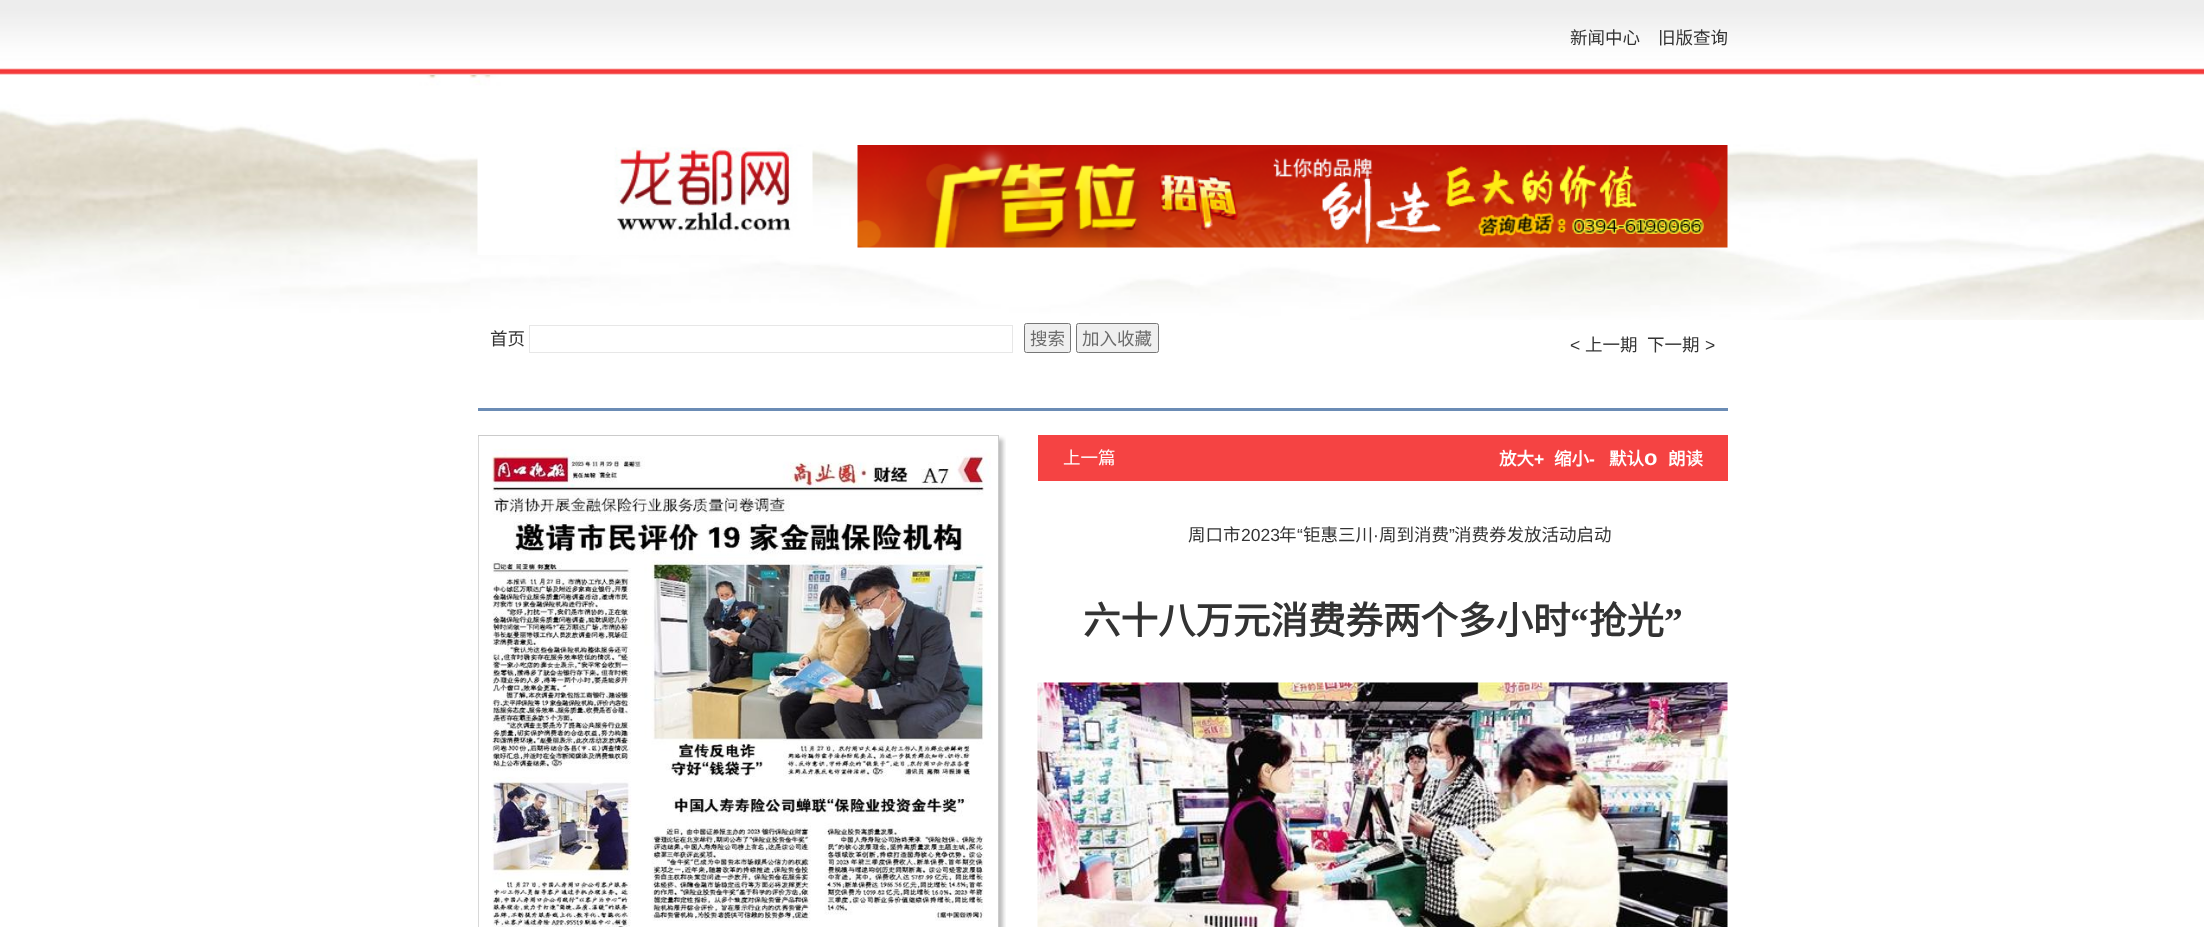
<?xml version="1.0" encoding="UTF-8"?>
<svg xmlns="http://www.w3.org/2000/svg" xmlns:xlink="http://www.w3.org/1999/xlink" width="2204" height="927">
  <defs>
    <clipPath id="clip1"><rect x="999" y="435" width="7" height="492" /></clipPath>
  </defs>
  <rect width="100%" height="100%" fill="#ffffff" />
  <image x="0" y="0" width="2204" height="75" xlink:href="image1.png" />
  <image x="0" y="75" width="2204" height="245" xlink:href="image2.png" />
  <image x="477" y="147" width="336" height="108" xlink:href="image3.png" />
  <image x="857" y="145" width="871" height="103" xlink:href="image4.png" />
  <rect x="478" y="408" width="1250" height="3" fill="#6b8cb5" />
  <rect x="529.5" y="325.5" width="483" height="27" fill="none" stroke="#e7e7e7" />
  <rect x="1024.5" y="323.5" width="46" height="29" rx="2" fill="#efefef" stroke="#767676" />
  <rect x="1076.5" y="323.5" width="82" height="29" rx="2" fill="#efefef" stroke="#767676" />
  <g clip-path="url(#clip1)">
    <rect x="481" y="439" width="522" height="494" fill="#bcbcbc" filter="blur(2px)" />
  </g>
  <rect x="478.5" y="435.5" width="520" height="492" fill="none" stroke="#cbcbcb" />
  <image x="478" y="436" width="513" height="491" xlink:href="image5.png" />
  <rect x="1038" y="435" width="690" height="46" fill="#f54343" />
  <image x="1037" y="682" width="691" height="245" xlink:href="image6.png" />
  <text x="1570" y="44" style="font-family: Noto Sans CJK SC; font-size: 17.5px; fill: #333333">新闻中心</text>
  <text x="1658" y="44" style="font-family: Noto Sans CJK SC; font-size: 17.5px; fill: #333333">旧版查询</text>
  <text x="490" y="345" style="font-family: Noto Sans CJK SC; font-size: 17.5px; fill: #333333">首页</text>
  <text x="1030" y="345" style="font-family: Noto Sans CJK SC; font-size: 17.5px; fill: #6b6b6b">搜索</text>
  <text x="1082" y="345" style="font-family: Noto Sans CJK SC; font-size: 17.5px; fill: #6b6b6b">加入收藏</text>
  <text x="1570" y="351" style="font-family: Liberation Sans; font-size: 17.5px; fill: #333333">&lt;</text>
  <text x="1585" y="351" style="font-family: Noto Sans CJK SC; font-size: 17.5px; fill: #333333">上一期</text>
  <text x="1647" y="351" style="font-family: Noto Sans CJK SC; font-size: 17.5px; fill: #333333">下一期</text>
  <text x="1705" y="351" style="font-family: Liberation Sans; font-size: 17.5px; fill: #333333">&gt;</text>
  <text x="1063" y="464" style="font-family: Noto Sans CJK SC; font-size: 17.5px; fill: #ffffff">上一篇</text>
  <text x="1499" y="465" style="font-family: Noto Sans CJK SC; font-size: 17.5px; font-weight: bold; fill: #ffffff">放大</text>
  <text x="1534" y="465" style="font-family: Liberation Sans; font-size: 17.5px; font-weight: bold; fill: #ffffff">+</text>
  <text x="1554" y="465" style="font-family: Noto Sans CJK SC; font-size: 17.5px; font-weight: bold; fill: #ffffff">缩小</text>
  <text x="1589" y="465" style="font-family: Liberation Sans; font-size: 17.5px; font-weight: bold; fill: #ffffff">-</text>
  <text x="1609" y="465" style="font-family: Noto Sans CJK SC; font-size: 17.5px; font-weight: bold; fill: #ffffff">默认</text>
  <text x="1644" y="465" style="font-family: Liberation Sans; font-size: 22px; font-weight: bold; fill: #ffffff">o</text>
  <text x="1668" y="465" style="font-family: Noto Sans CJK SC; font-size: 17.5px; font-weight: bold; fill: #ffffff">朗读</text>
  <text x="1188" y="541" style="font-family: Noto Sans CJK SC; font-size: 17.5px; fill: #333333">周口市</text>
  <text x="1241" y="541" style="font-family: Liberation Sans; font-size: 17.5px; fill: #333333">2023</text>
  <text x="1279" y="541" style="font-family: Noto Sans CJK SC; font-size: 17.5px; fill: #333333">年</text>
  <text x="1297" y="541" style="font-family: Liberation Sans; font-size: 17.5px; fill: #333333">“</text>
  <text x="1303" y="541" style="font-family: Noto Sans CJK SC; font-size: 17.5px; fill: #333333">钜惠三川</text>
  <text x="1379" y="541" style="font-family: Noto Sans CJK SC; font-size: 17.5px; fill: #333333">周到消费</text>
  <text x="1449" y="541" style="font-family: Liberation Sans; font-size: 17.5px; fill: #333333">”</text>
  <text x="1454" y="541" style="font-family: Noto Sans CJK SC; font-size: 17.5px; fill: #333333">消费券发放活动启动</text>
  <text x="1373" y="541" style="font-family: Liberation Sans; font-size: 17.5px; fill: #333333">·</text>
  <text x="1083" y="634" style="font-family: Noto Sans CJK SC; font-size: 37.5px; font-weight: bold; fill: #333333">六十八万元消费券两个多小时</text>
  <text x="1570" y="634" style="font-family: Liberation Serif; font-size: 37.5px; font-weight: bold; fill: #333333">“</text>
  <text x="1589" y="634" style="font-family: Noto Sans CJK SC; font-size: 37.5px; font-weight: bold; fill: #333333">抢光</text>
  <text x="1664" y="634" style="font-family: Liberation Serif; font-size: 37.5px; font-weight: bold; fill: #333333">”</text>
</svg>
